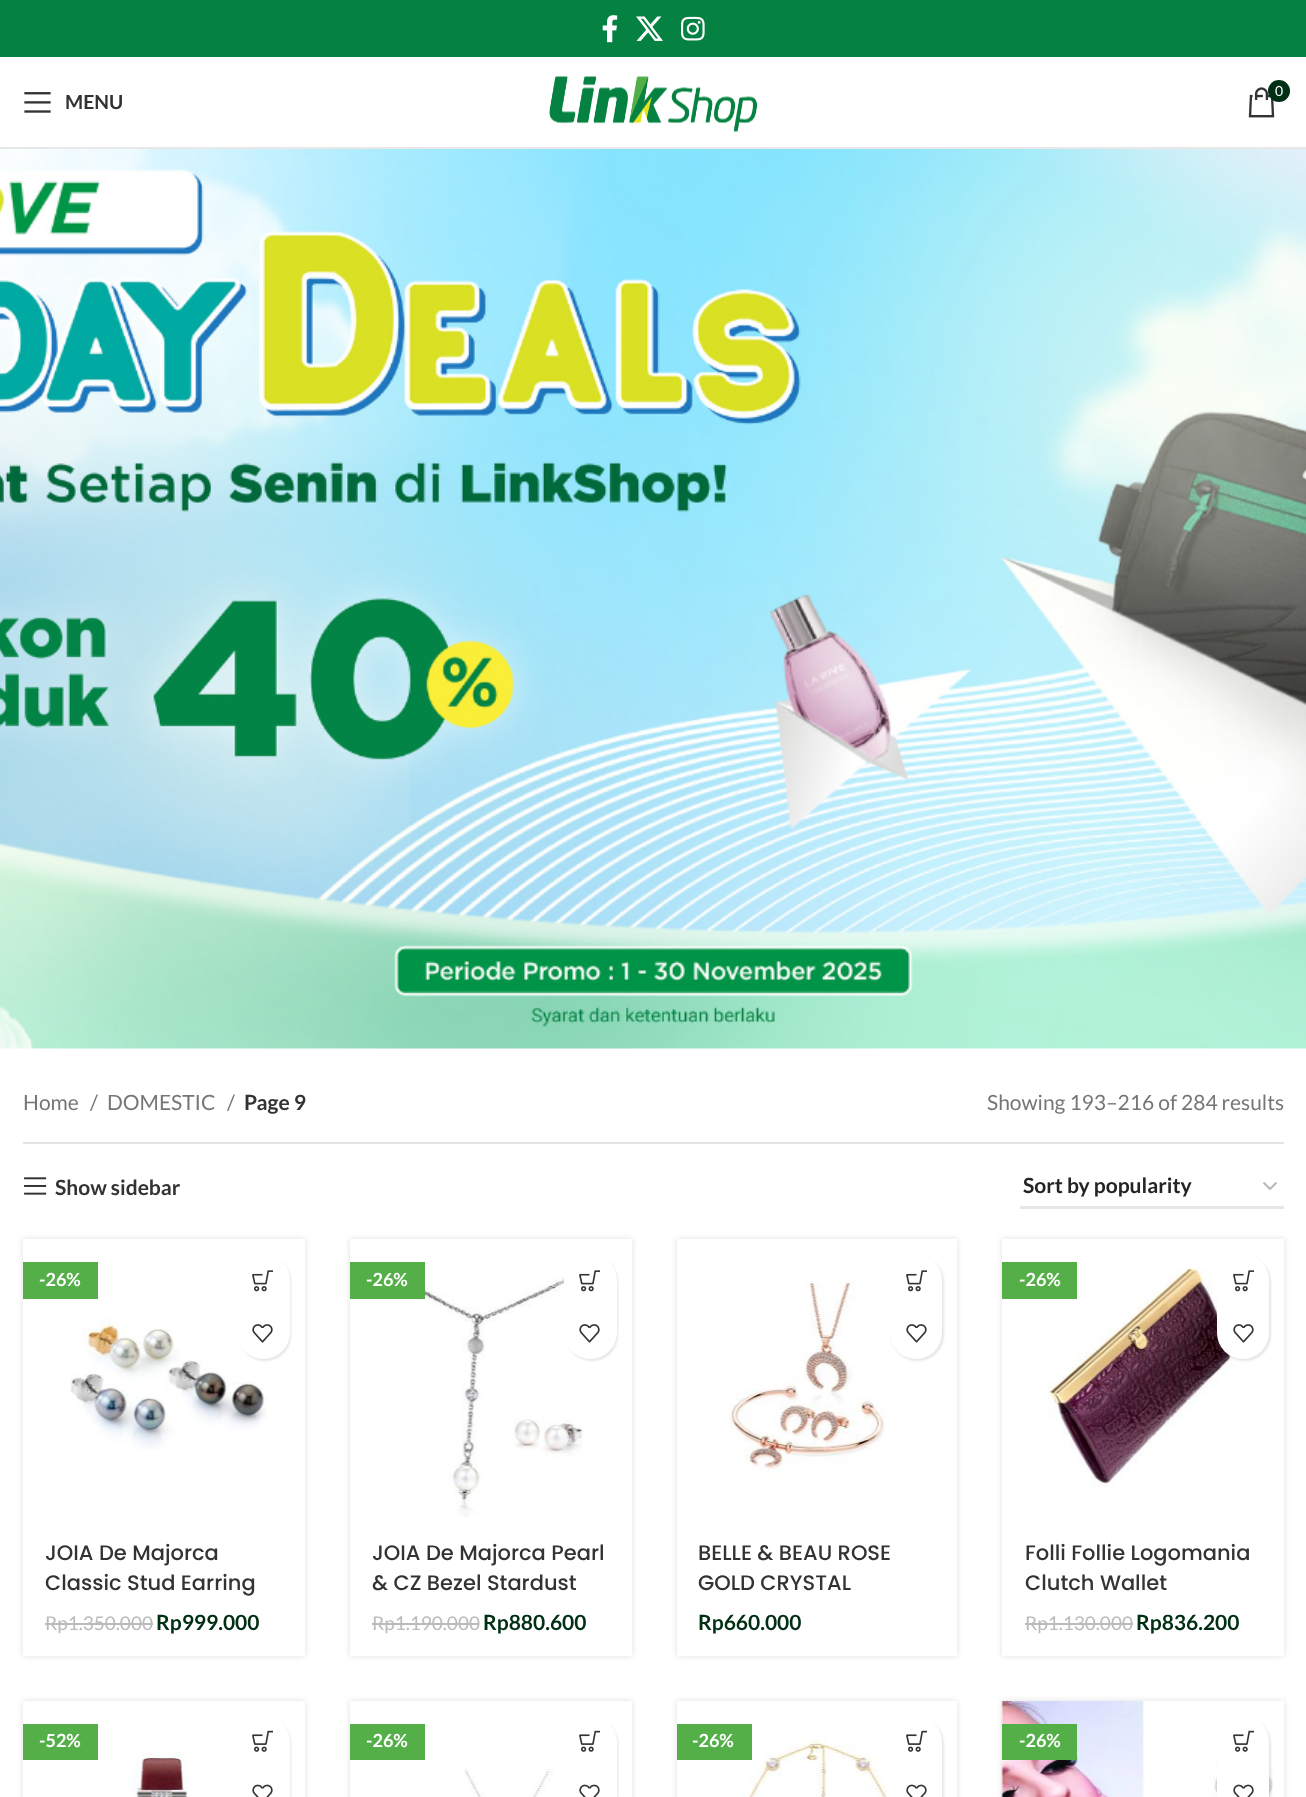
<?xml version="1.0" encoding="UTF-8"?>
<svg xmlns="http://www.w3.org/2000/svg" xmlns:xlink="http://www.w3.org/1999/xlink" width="1306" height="1797">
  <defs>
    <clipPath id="clip1"><path d="M 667 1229 h 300 v 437 h -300 z m 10 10 h 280 v 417 h -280 z" clip-rule="evenodd" /></clipPath>
    <clipPath id="clip2"><path d="M 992 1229 h 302 v 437 h -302 z m 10 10 h 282 v 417 h -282 z" clip-rule="evenodd" /></clipPath>
    <clipPath id="clip3"><path d="M 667 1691 h 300 v 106 h -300 z m 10 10 h 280 v 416 h -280 z" clip-rule="evenodd" /></clipPath>
    <clipPath id="clip4"><path d="M 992 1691 h 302 v 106 h -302 z m 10 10 h 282 v 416 h -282 z" clip-rule="evenodd" /></clipPath>
  </defs>
  <rect width="100%" height="100%" fill="#ffffff" />
  <rect width="1306" height="57" fill="#058241" />
  <image x="602" y="15" width="16" height="28" xlink:href="image1.png" />
  <image x="636" y="16" width="27" height="25" xlink:href="image2.png" />
  <image x="681" y="16" width="24" height="25" xlink:href="image3.png" />
  <rect y="147" width="1306" height="2" fill="#e8e8e8" />
  <image x="549" y="76" width="209" height="56" xlink:href="image4.png" />
  <image x="1248" y="87" width="27" height="31" xlink:href="image5.png" />
  <circle cx="1279" cy="91" r="11" fill="#002f14" />
  <image x="24" y="92" width="27" height="21" xlink:href="image6.png" />
  <image x="0" y="149" width="1306" height="900" xlink:href="image7.png" />
  <rect x="23" y="1142" width="1261" height="2" fill="#e4e4e4" />
  <image x="24" y="1177" width="23" height="18" xlink:href="image8.png" />
  <path d="M 1263.5 1182.5 l 6.5 6.5 l 6.5 -6.5" fill="none" stroke="#bbbbbb" stroke-width="2.2" />
  <rect x="1020" y="1206" width="264" height="3" fill="#e6e6e6" />
  <rect x="23" y="1239" width="282" height="417" fill="#000000" fill-opacity="0.12" filter="blur(3px)" />
  <rect x="23" y="1239" width="282" height="417" fill="#ffffff" />
  <rect x="23" y="1262" width="75" height="37" fill="#55af49" />
  <image x="70" y="1317" width="197" height="133" xlink:href="image9.png" />
  <rect x="239" y="1256" width="52" height="105" rx="26" fill="#000000" fill-opacity="0.1" filter="blur(1px)" />
  <rect x="237" y="1254" width="53" height="105" rx="26.5" fill="#ffffff" />
  <image x="252" y="1270" width="21" height="22" xlink:href="image10.png" />
  <image x="252" y="1324" width="21" height="19" xlink:href="image11.png" />
  <rect x="45" y="1623" width="108" height="2" fill="#bbbbbb" />
  <rect x="350" y="1239" width="282" height="417" fill="#000000" fill-opacity="0.12" filter="blur(3px)" />
  <rect x="350" y="1239" width="282" height="417" fill="#ffffff" />
  <image x="391" y="1270" width="192" height="247" xlink:href="image12.png" />
  <rect x="350" y="1262" width="75" height="37" fill="#55af49" />
  <rect x="566" y="1256" width="52" height="105" rx="26" fill="#000000" fill-opacity="0.1" filter="blur(1px)" />
  <rect x="564" y="1254" width="53" height="105" rx="26.5" fill="#ffffff" />
  <image x="579" y="1270" width="21" height="22" xlink:href="image10.png" />
  <image x="579" y="1324" width="21" height="19" xlink:href="image11.png" />
  <rect x="372" y="1623" width="107" height="2" fill="#bbbbbb" />
  <g clip-path="url(#clip1)">
    <rect x="677" y="1239" width="280" height="417" fill="#000000" fill-opacity="0.12" filter="blur(3px)" />
  </g>
  <image x="729" y="1280" width="157" height="196" xlink:href="image13.png" />
  <rect x="891" y="1256" width="53" height="105" rx="26.5" fill="#000000" fill-opacity="0.1" filter="blur(1px)" />
  <rect x="890" y="1254" width="52" height="105" rx="26" fill="#ffffff" />
  <image x="906" y="1270" width="21" height="22" xlink:href="image10.png" />
  <image x="906" y="1324" width="21" height="19" xlink:href="image11.png" />
  <g clip-path="url(#clip2)">
    <rect x="1002" y="1239" width="282" height="417" fill="#000000" fill-opacity="0.12" filter="blur(3px)" />
  </g>
  <image x="1047" y="1268" width="188" height="219" xlink:href="image14.png" />
  <rect x="1002" y="1262" width="75" height="37" fill="#55af49" />
  <rect x="1218" y="1256" width="53" height="105" rx="26.5" fill="#000000" fill-opacity="0.1" filter="blur(1px)" />
  <rect x="1217" y="1254" width="52" height="105" rx="26" fill="#ffffff" />
  <image x="1233" y="1270" width="21" height="22" xlink:href="image10.png" />
  <image x="1233" y="1324" width="21" height="19" xlink:href="image11.png" />
  <rect x="1025" y="1623" width="108" height="2" fill="#bbbbbb" />
  <rect x="23" y="1701" width="282" height="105" fill="#000000" fill-opacity="0.12" filter="blur(3px)" />
  <rect x="23" y="1701" width="282" height="96" fill="#ffffff" />
  <rect x="23" y="1724" width="75" height="36" fill="#55af49" />
  <image x="130" y="1746" width="58" height="51" xlink:href="image15.png" />
  <rect x="239" y="1718" width="52" height="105" rx="26" fill="#000000" fill-opacity="0.1" filter="blur(1px)" />
  <rect x="237" y="1716" width="53" height="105" rx="26.5" fill="#ffffff" />
  <image x="252" y="1730" width="21" height="22" xlink:href="image16.png" />
  <image x="252" y="1784" width="21" height="13" xlink:href="image17.png" />
  <rect x="350" y="1701" width="282" height="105" fill="#000000" fill-opacity="0.12" filter="blur(3px)" />
  <rect x="350" y="1701" width="282" height="96" fill="#ffffff" />
  <rect x="350" y="1724" width="75" height="36" fill="#55af49" />
  <image x="464" y="1769" width="89" height="28" xlink:href="image18.png" />
  <rect x="566" y="1718" width="52" height="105" rx="26" fill="#000000" fill-opacity="0.1" filter="blur(1px)" />
  <rect x="564" y="1716" width="53" height="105" rx="26.5" fill="#ffffff" />
  <image x="579" y="1730" width="21" height="22" xlink:href="image16.png" />
  <image x="579" y="1784" width="21" height="13" xlink:href="image17.png" />
  <g clip-path="url(#clip3)">
    <rect x="677" y="1701" width="280" height="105" fill="#000000" fill-opacity="0.12" filter="blur(3px)" />
  </g>
  <image x="740" y="1739" width="147" height="58" xlink:href="image19.png" />
  <rect x="677" y="1724" width="75" height="36" fill="#55af49" />
  <rect x="891" y="1718" width="53" height="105" rx="26.5" fill="#000000" fill-opacity="0.1" filter="blur(1px)" />
  <rect x="890" y="1716" width="52" height="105" rx="26" fill="#ffffff" />
  <image x="906" y="1730" width="21" height="22" xlink:href="image16.png" />
  <image x="906" y="1784" width="21" height="13" xlink:href="image17.png" />
  <g clip-path="url(#clip4)">
    <rect x="1002" y="1701" width="282" height="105" fill="#000000" fill-opacity="0.12" filter="blur(3px)" />
  </g>
  <image x="1001" y="1701" width="272" height="96" xlink:href="image20.png" />
  <rect x="1002" y="1724" width="75" height="36" fill="#55af49" />
  <rect x="1218" y="1718" width="53" height="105" rx="26.5" fill="#000000" fill-opacity="0.1" filter="blur(1px)" />
  <rect x="1217" y="1716" width="52" height="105" rx="26" fill="#ffffff" />
  <image x="1233" y="1730" width="21" height="22" xlink:href="image16.png" />
  <image x="1233" y="1784" width="21" height="13" xlink:href="image17.png" />
  <text x="1275" y="96" style="font-family: Lato; font-size: 14px; fill: #ffffff">0</text>
  <text x="65" y="109" style="font-family: Lato; font-size: 19.5px; font-weight: bold; fill: #333333">MENU</text>
  <text x="23" y="1110" style="font-family: Lato; font-size: 21px; fill: #767676">Home</text>
  <text x="90" y="1110" style="font-family: Lato; font-size: 21px; fill: #767676">/</text>
  <text x="107" y="1110" style="font-family: Lato; font-size: 21px; fill: #767676">DOMESTIC</text>
  <text x="227" y="1110" style="font-family: Lato; font-size: 21px; fill: #767676">/</text>
  <text x="244" y="1110" style="font-family: Lato; font-size: 21px; font-weight: bold; fill: #333333">Page 9</text>
  <text x="987" y="1110" style="font-family: Lato; font-size: 21px; fill: #767676">Showing 193–216 of 284 results</text>
  <text x="55" y="1195" style="font-family: Lato; font-size: 21px; font-weight: bold; fill: #333333">Show sidebar</text>
  <text x="1023" y="1193" style="font-family: Lato; font-size: 21px; font-weight: bold; fill: #242424">Sort by popularity</text>
  <text x="39" y="1286" style="font-family: Lato; font-size: 18px; font-weight: bold; fill: #ffffff">-26%</text>
  <text x="45" y="1560" style="font-family: Poppins; font-size: 21px; font-weight: 500; fill: #333333">JOIA De Majorca</text>
  <text x="45" y="1590" style="font-family: Poppins; font-size: 21px; font-weight: 500; fill: #333333">Classic Stud Earring</text>
  <text x="45" y="1630" style="font-family: Lato; font-size: 19px; fill: #bbbbbb">Rp1.350.000</text>
  <text x="156" y="1630" style="font-family: Lato; font-size: 21px; font-weight: bold; fill: #002f14">Rp999.000</text>
  <text x="366" y="1286" style="font-family: Lato; font-size: 18px; font-weight: bold; fill: #ffffff">-26%</text>
  <text x="372" y="1560" style="font-family: Poppins; font-size: 21px; font-weight: 500; fill: #333333">JOIA De Majorca Pearl</text>
  <text x="372" y="1590" style="font-family: Poppins; font-size: 21px; font-weight: 500; fill: #333333">&amp; CZ Bezel Stardust</text>
  <text x="372" y="1630" style="font-family: Lato; font-size: 19px; fill: #bbbbbb">Rp1.190.000</text>
  <text x="483" y="1630" style="font-family: Lato; font-size: 21px; font-weight: bold; fill: #002f14">Rp880.600</text>
  <text x="698" y="1560" style="font-family: Poppins; font-size: 21px; font-weight: 500; fill: #333333">BELLE &amp; BEAU ROSE</text>
  <text x="698" y="1590" style="font-family: Poppins; font-size: 21px; font-weight: 500; fill: #333333">GOLD CRYSTAL</text>
  <text x="698" y="1630" style="font-family: Lato; font-size: 21px; font-weight: bold; fill: #002f14">Rp660.000</text>
  <text x="1019" y="1286" style="font-family: Lato; font-size: 18px; font-weight: bold; fill: #ffffff">-26%</text>
  <text x="1025" y="1560" style="font-family: Poppins; font-size: 21px; font-weight: 500; fill: #333333">Folli Follie Logomania</text>
  <text x="1025" y="1590" style="font-family: Poppins; font-size: 21px; font-weight: 500; fill: #333333">Clutch Wallet</text>
  <text x="1025" y="1630" style="font-family: Lato; font-size: 19px; fill: #bbbbbb">Rp1.130.000</text>
  <text x="1136" y="1630" style="font-family: Lato; font-size: 21px; font-weight: bold; fill: #002f14">Rp836.200</text>
  <text x="39" y="1747" style="font-family: Lato; font-size: 18px; font-weight: bold; fill: #ffffff">-52%</text>
  <text x="366" y="1747" style="font-family: Lato; font-size: 18px; font-weight: bold; fill: #ffffff">-26%</text>
  <text x="692" y="1747" style="font-family: Lato; font-size: 18px; font-weight: bold; fill: #ffffff">-26%</text>
  <text x="1019" y="1747" style="font-family: Lato; font-size: 18px; font-weight: bold; fill: #ffffff">-26%</text>
</svg>
